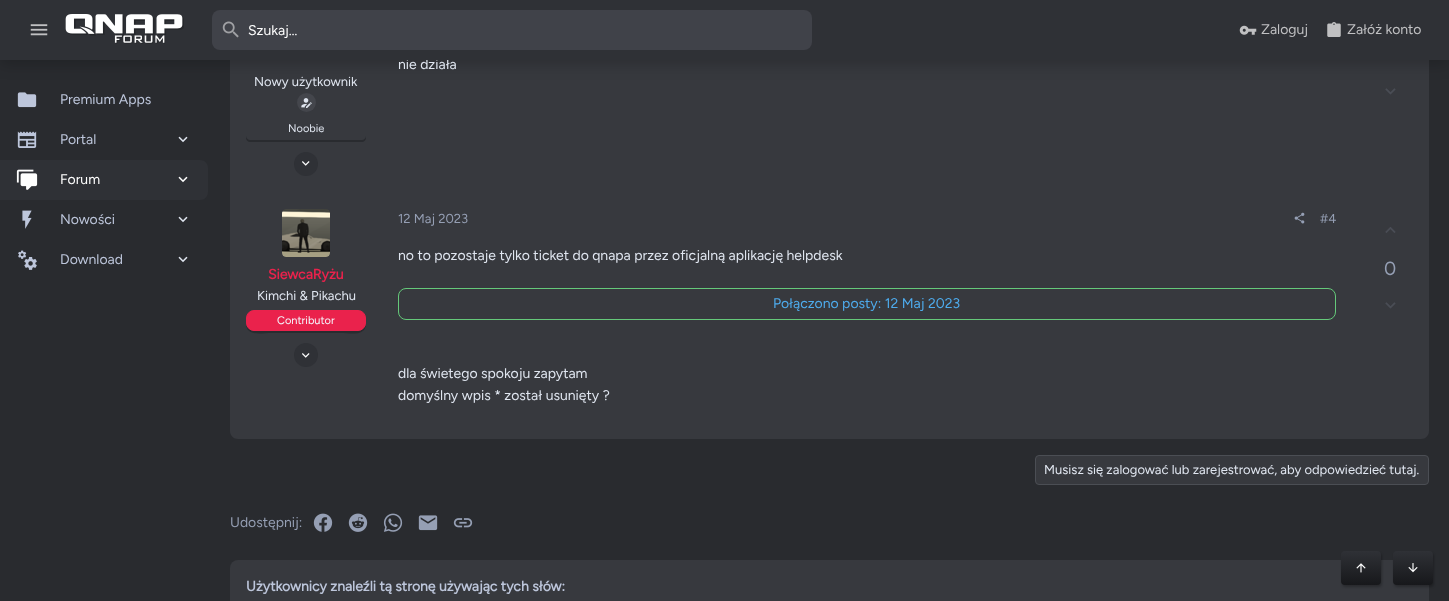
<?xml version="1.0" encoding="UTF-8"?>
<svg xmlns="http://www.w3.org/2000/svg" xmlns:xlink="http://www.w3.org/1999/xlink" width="1449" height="601">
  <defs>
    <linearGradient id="g1" gradientUnits="userSpaceOnUse" x1="1361" y1="551" x2="1361" y2="585"><stop offset="0" stop-color="#2f3136" /><stop offset="1" stop-color="#17181b" /></linearGradient>
    <linearGradient id="g2" gradientUnits="userSpaceOnUse" x1="1413" y1="551" x2="1413" y2="585"><stop offset="0" stop-color="#2f3136" /><stop offset="1" stop-color="#17181b" /></linearGradient>
  </defs>
  <rect width="100%" height="100%" fill="#292b2f" />
  <rect x="230" y="60" width="1199" height="133" fill="#37393e" />
  <rect y="4" width="1449" height="60" fill="#000000" fill-opacity="0.2" filter="blur(7.5px)" />
  <image x="17" y="92" width="20" height="16" xlink:href="image6.png" />
  <image x="17" y="131" width="20" height="17" xlink:href="image7.png" />
  <image x="178" y="136" width="10" height="7" xlink:href="image8.png" />
  <path d="M 0 160 h 200 c 4.5 0 8 3.5 8 8 v 24 c 0 4.5 -3.5 8 -8 8 h -200 z" fill="#2f3136" />
  <image x="16" y="169" width="22" height="21" xlink:href="image9.png" />
  <image x="178" y="176" width="10" height="7" xlink:href="image10.png" />
  <image x="22" y="210" width="10" height="19" xlink:href="image11.png" />
  <image x="178" y="216" width="10" height="7" xlink:href="image8.png" />
  <image x="18" y="250" width="19" height="20" xlink:href="image12.png" />
  <image x="178" y="256" width="10" height="7" xlink:href="image8.png" />
  <circle cx="306.5" cy="102.5" r="9.5" fill="#44464c" />
  <image x="301" y="98" width="11" height="10" xlink:href="image13.png" />
  <path d="M 246 136 v 2 c 0 2 2 4 4 4 h 112 c 2 0 4 -2 4 -4 v -2 c 0 2 -2 4 -4 4 h -112 c -2 0 -4 -2 -4 -4 z" fill="#292b2f" />
  <circle cx="306" cy="164" r="12" fill="#2f3136" />
  <image x="302" y="161" width="8" height="5" xlink:href="image14.png" />
  <image x="1385" y="88" width="11" height="7" xlink:href="image15.png" />
  <path d="M 230 193 h 1199 v 238 c 0 4.5 -3.5 8 -8 8 h -1183 c -4.5 0 -8 -3.5 -8 -8 z" fill="#37393e" />
  <image x="282" y="209" width="48" height="48" xlink:href="image16.png" />
  <path d="M 246 323 c 0 14 15 10 25 10 h 70 c 10 0 25 4 25 -10 c 0 4 -4 8 -8 8 h -104 c -4 0 -8 -4 -8 -8 z" fill="#292b2f" />
  <rect x="246.5" y="310.5" width="119" height="20" rx="7.5" fill="#ea224c" stroke="#ea224c" />
  <circle cx="306" cy="355" r="12" fill="#2f3136" />
  <image x="302" y="353" width="8" height="5" xlink:href="image14.png" />
  <image x="1294" y="212" width="11" height="12" xlink:href="image17.png" />
  <rect x="398.5" y="288.5" width="937" height="31" rx="7.5" fill="none" stroke="#65c97a" />
  <image x="1385" y="227" width="11" height="6" xlink:href="image18.png" />
  <image x="1385" y="302" width="11" height="7" xlink:href="image15.png" />
  <rect x="1035.5" y="455.5" width="393" height="29" rx="3.5" fill="#37393e" stroke="#4b4e54" />
  <image x="313" y="513" width="20" height="19" xlink:href="image19.png" />
  <image x="348" y="513" width="20" height="19" xlink:href="image20.png" />
  <image x="383" y="513" width="20" height="19" xlink:href="image21.png" />
  <image x="418" y="515" width="20" height="16" xlink:href="image22.png" />
  <image x="453" y="518" width="20" height="10" xlink:href="image23.png" />
  <rect x="230" y="560" width="1199" height="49" rx="8" fill="#37393e" />
  <rect x="1342" y="553" width="40" height="34" rx="4" fill="#000000" fill-opacity="0.25" filter="blur(1px)" />
  <rect x="1341" y="551" width="40" height="34" rx="4" fill="url(#g1)" />
  <image x="1356" y="563" width="10" height="10" xlink:href="image24.png" />
  <rect x="1394" y="553" width="40" height="34" rx="4" fill="#000000" fill-opacity="0.25" filter="blur(1px)" />
  <rect x="1393" y="551" width="40" height="34" rx="4" fill="url(#g2)" />
  <image x="1408" y="563" width="10" height="10" xlink:href="image25.png" />
  <text x="60" y="104" style="font-family: Figtree; font-size: 14px; font-weight: 300; fill: #bdc6db">Premium Apps</text>
  <text x="60" y="144" style="font-family: Figtree; font-size: 14px; font-weight: 300; fill: #bdc6db">Portal</text>
  <text x="60" y="184" style="font-family: Figtree; font-size: 14px; font-weight: 300; fill: #ffffff">Forum</text>
  <text x="60" y="224" style="font-family: Figtree; font-size: 14px; font-weight: 300; fill: #bdc6db">Nowości</text>
  <text x="60" y="264" style="font-family: Figtree; font-size: 14px; font-weight: 300; fill: #bdc6db">Download</text>
  <text x="398" y="69" style="font-family: Figtree; font-size: 14px; font-weight: 300; fill: #e0e6f0">nie działa</text>
  <rect width="1449" height="60" fill="#2f3136" />
  <text x="1347" y="34" style="font-family: Figtree; font-size: 14px; font-weight: 300; fill: #c1c1c3">Załóż konto</text>
  <image x="1327" y="22" width="14" height="15" xlink:href="image5.png" />
  <rect x="212" y="10" width="600" height="40" rx="8" fill="#404249" />
  <image x="222" y="21" width="17" height="17" xlink:href="image3.png" />
  <text x="248" y="35" style="font-family: Figtree; font-size: 14px; font-weight: 300; fill: #ffffff">Szukaj…</text>
  <image x="30" y="24" width="18" height="12" xlink:href="image1.png" />
  <text x="1261" y="34" style="font-family: Figtree; font-size: 14px; font-weight: 300; fill: #c1c1c3">Zaloguj</text>
  <image x="1239" y="25" width="18" height="10" xlink:href="image4.png" />
  <image x="65" y="14" width="119" height="30" xlink:href="image2.png" />
  <text x="254" y="86" style="font-family: Figtree; font-size: 13px; font-weight: 300; fill: #e0e6f0">Nowy użytkownik</text>
  <text x="288" y="132" style="font-family: Figtree; font-size: 11px; font-weight: 300; fill: #e0e6f0">Noobie</text>
  <text x="268" y="279" style="font-family: Figtree; font-size: 14px; font-weight: bold; fill: #ea224c">SiewcaRyżu</text>
  <text x="257" y="300" style="font-family: Figtree; font-size: 13px; font-weight: 300; fill: #e0e6f0">Kimchi &amp; Pikachu</text>
  <text x="277" y="324" style="font-family: Figtree; font-size: 11px; font-weight: 300; fill: #f4f8fe">Contributor</text>
  <text x="398" y="223" style="font-family: Figtree; font-size: 13px; font-weight: 300; fill: #959fb4">12 Maj 2023</text>
  <text x="1320" y="223" style="font-family: Figtree; font-size: 13px; font-weight: 300; fill: #959fb4">#4</text>
  <text x="398" y="260" style="font-family: Figtree; font-size: 14px; font-weight: 300; fill: #e0e6f0">no to pozostaje tylko ticket do qnapa przez oficjalną aplikację helpdesk</text>
  <text x="773" y="308" style="font-family: Figtree; font-size: 14px; font-weight: 300; fill: #4eacee">Połączono posty: 12 Maj 2023</text>
  <text x="398" y="378" style="font-family: Figtree; font-size: 14px; font-weight: 300; fill: #e0e6f0">dla świetego spokoju zapytam</text>
  <text x="398" y="400" style="font-family: Figtree; font-size: 14px; font-weight: 300; fill: #e0e6f0">domyślny wpis * został usunięty ?</text>
  <text x="1384" y="275" style="font-family: Figtree; font-size: 19px; font-weight: 300; fill: #959fb4">0</text>
  <text x="1044" y="474" style="font-family: Figtree; font-size: 13px; font-weight: 300; fill: #e0e6f0">Musisz się zalogować lub zarejestrować, aby odpowiedzieć tutaj.</text>
  <text x="230" y="527" style="font-family: Figtree; font-size: 14px; font-weight: 300; fill: #959fb4">Udostępnij:</text>
  <text x="246" y="591" style="font-family: Figtree; font-size: 14px; font-weight: bold; fill: #bdc6db">Użytkownicy znaleźli tą stronę używając tych słów:</text>
</svg>
